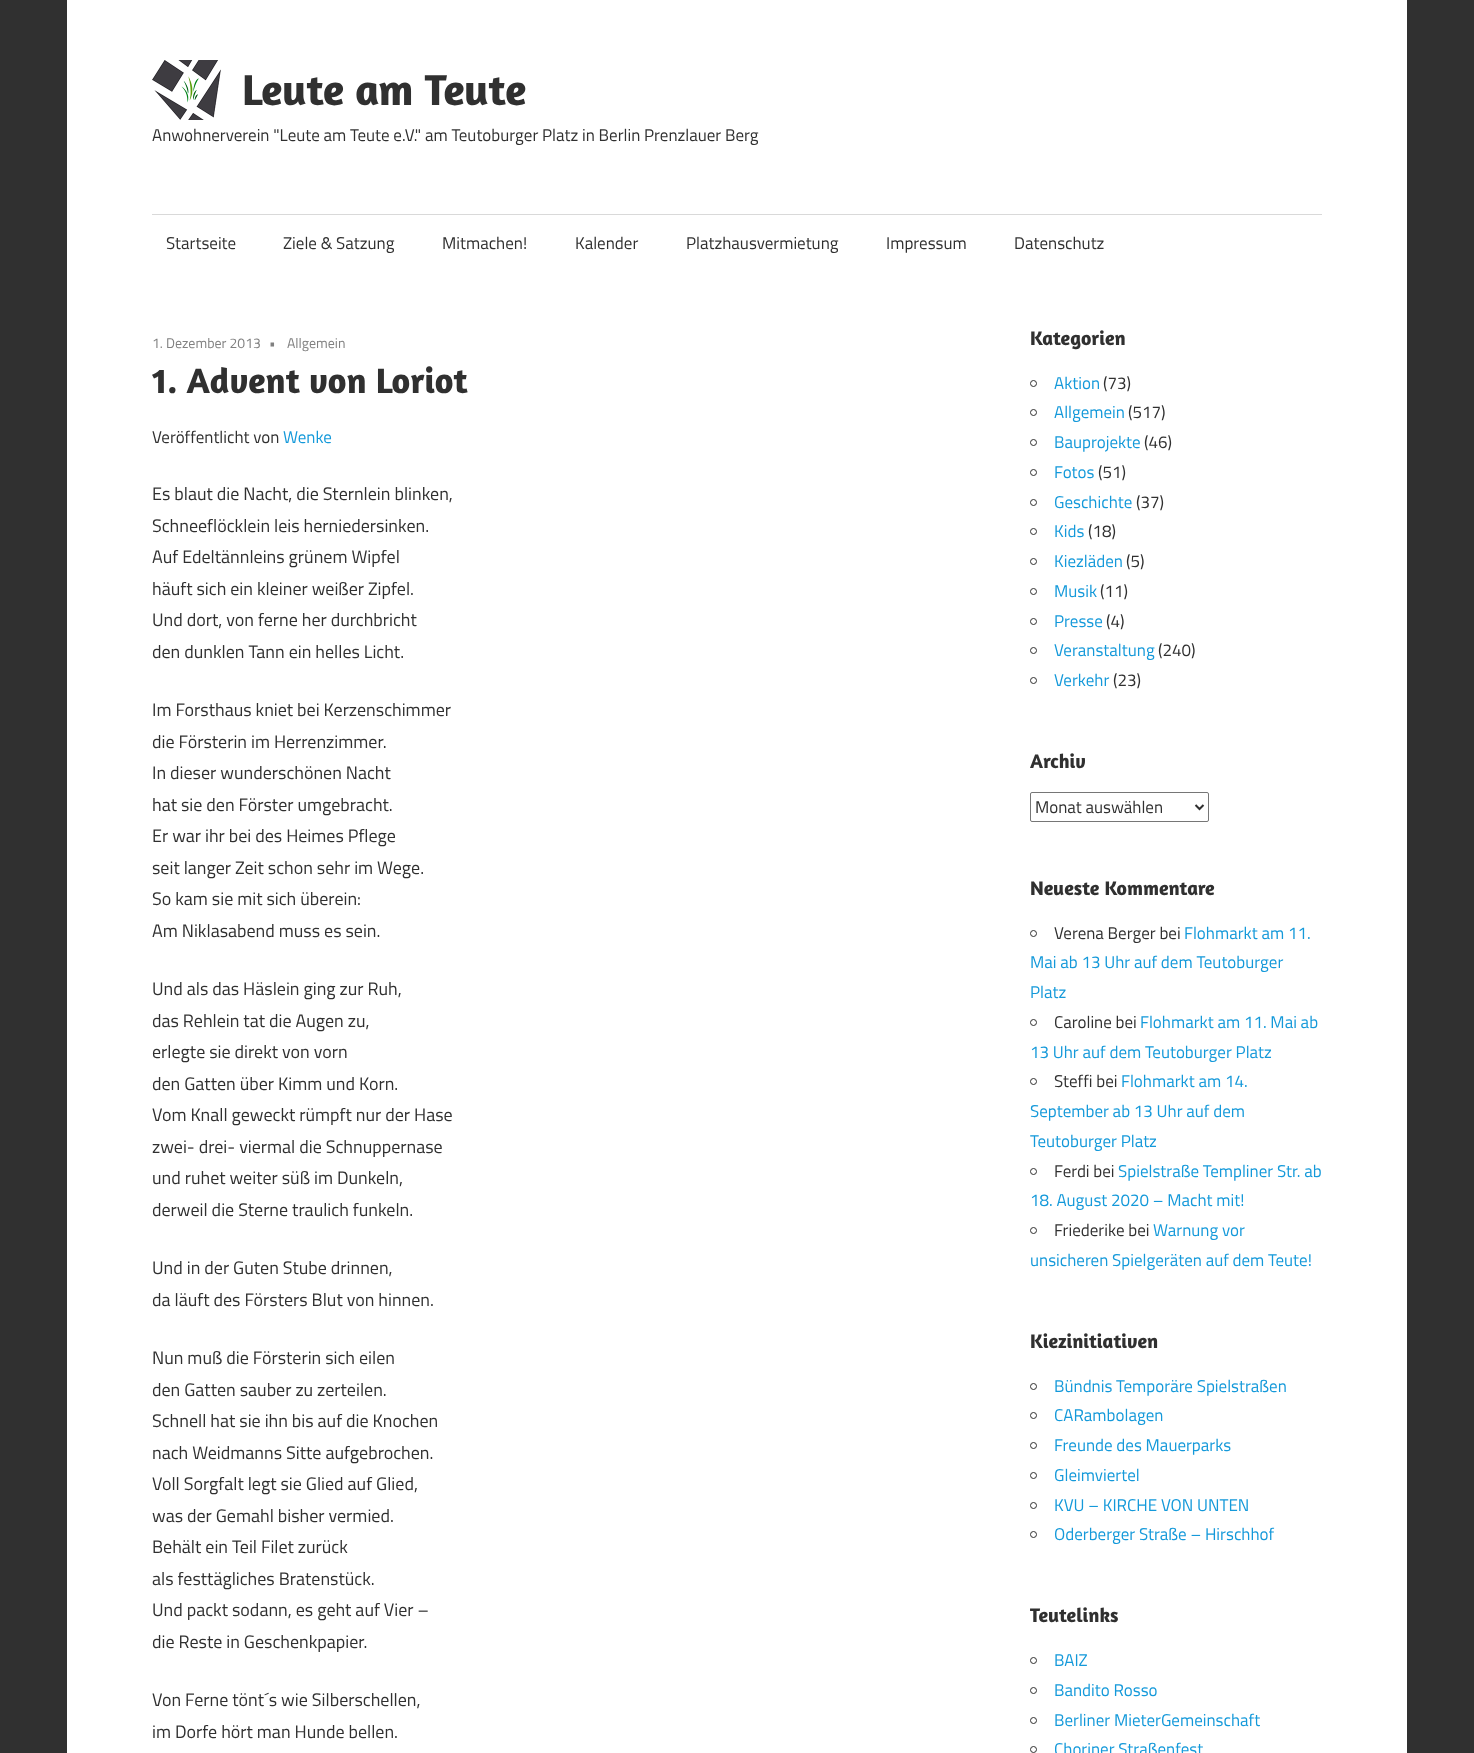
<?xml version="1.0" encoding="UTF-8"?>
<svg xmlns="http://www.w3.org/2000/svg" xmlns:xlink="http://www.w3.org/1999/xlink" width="1474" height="1753">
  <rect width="100%" height="100%" fill="#303030" />
  <rect x="67" width="1340" height="1753" fill="#ffffff" />
  <image x="152" y="60" width="69" height="60" xlink:href="image1.png" />
  <rect x="152" y="214" width="1170" height="1" fill="#d9d9d9" />
  <circle cx="1033.5" cy="383.5" r="3" fill="none" stroke="#303030" />
  <circle cx="1033.5" cy="412.5" r="3" fill="none" stroke="#303030" />
  <circle cx="1033.5" cy="442.5" r="3" fill="none" stroke="#303030" />
  <circle cx="1033.5" cy="472.5" r="3" fill="none" stroke="#303030" />
  <circle cx="1033.5" cy="502.5" r="3" fill="none" stroke="#303030" />
  <circle cx="1033.5" cy="531.5" r="3" fill="none" stroke="#303030" />
  <circle cx="1033.5" cy="561.5" r="3" fill="none" stroke="#303030" />
  <circle cx="1033.5" cy="591.5" r="3" fill="none" stroke="#303030" />
  <circle cx="1033.5" cy="621.5" r="3" fill="none" stroke="#303030" />
  <circle cx="1033.5" cy="650.5" r="3" fill="none" stroke="#303030" />
  <circle cx="1033.5" cy="680.5" r="3" fill="none" stroke="#303030" />
  <rect x="1030.5" y="792.5" width="178" height="29" rx="1.5" fill="none" stroke="#767676" />
  <path d="M 1195.5 805 l 4 4 l 4 -4" fill="none" stroke="#303030" stroke-width="2" />
  <circle cx="1033.5" cy="933.5" r="3" fill="none" stroke="#303030" />
  <circle cx="1033.5" cy="1022.5" r="3" fill="none" stroke="#303030" />
  <circle cx="1033.5" cy="1081.5" r="3" fill="none" stroke="#303030" />
  <circle cx="1033.5" cy="1171.5" r="3" fill="none" stroke="#303030" />
  <circle cx="1033.5" cy="1230.5" r="3" fill="none" stroke="#303030" />
  <circle cx="1033.5" cy="1386.5" r="3" fill="none" stroke="#303030" />
  <circle cx="1033.5" cy="1415.5" r="3" fill="none" stroke="#303030" />
  <circle cx="1033.5" cy="1445.5" r="3" fill="none" stroke="#303030" />
  <circle cx="1033.5" cy="1475.5" r="3" fill="none" stroke="#303030" />
  <circle cx="1033.5" cy="1505.5" r="3" fill="none" stroke="#303030" />
  <circle cx="1033.5" cy="1534.5" r="3" fill="none" stroke="#303030" />
  <circle cx="1033.5" cy="1660.5" r="3" fill="none" stroke="#303030" />
  <circle cx="1033.5" cy="1690.5" r="3" fill="none" stroke="#303030" />
  <circle cx="1033.5" cy="1720.5" r="3" fill="none" stroke="#303030" />
  <circle cx="1033.5" cy="1749.5" r="3" fill="none" stroke="#303030" />
  <text x="242" y="105" style="font-family: Amaranth; font-size: 44px; font-weight: bold; fill: #303030">Leute am Teute</text>
  <text x="152" y="141" style="font-family: Titillium Web; font-size: 17px; fill: #303030">Anwohnerverein "Leute am Teute e.V." am Teutoburger Platz in Berlin Prenzlauer Berg</text>
  <text x="166" y="249" style="font-family: Titillium Web; font-size: 17px; fill: #303030">Startseite</text>
  <text x="283" y="249" style="font-family: Titillium Web; font-size: 17px; fill: #303030">Ziele &amp; Satzung</text>
  <text x="442" y="249" style="font-family: Titillium Web; font-size: 17px; fill: #303030">Mitmachen!</text>
  <text x="575" y="249" style="font-family: Titillium Web; font-size: 17px; fill: #303030">Kalender</text>
  <text x="686" y="249" style="font-family: Titillium Web; font-size: 17px; fill: #303030">Platzhausvermietung</text>
  <text x="886" y="249" style="font-family: Titillium Web; font-size: 17px; fill: #303030">Impressum</text>
  <text x="1014" y="249" style="font-family: Titillium Web; font-size: 17px; fill: #303030">Datenschutz</text>
  <text x="152" y="348" style="font-family: Titillium Web; font-size: 14px; fill: #808080">1. Dezember 2013</text>
  <text x="269" y="348" style="font-family: Titillium Web; font-size: 14px; fill: #808080">•</text>
  <text x="287" y="348" style="font-family: Titillium Web; font-size: 14px; fill: #808080">Allgemein</text>
  <text x="152" y="393" style="font-family: Amaranth; font-size: 36px; font-weight: bold; fill: #303030">1. Advent von Loriot</text>
  <text x="152" y="443" style="font-family: Titillium Web; font-size: 17px; fill: #303030">Veröffentlicht von</text>
  <text x="283" y="443" style="font-family: Titillium Web; font-size: 17px; fill: #1499da">Wenke</text>
  <text x="152" y="500" style="font-family: Titillium Web; font-size: 18px; fill: #303030">Es blaut die Nacht, die Sternlein blinken,</text>
  <text x="152" y="532" style="font-family: Titillium Web; font-size: 18px; fill: #303030">Schneeflöcklein leis herniedersinken.</text>
  <text x="152" y="563" style="font-family: Titillium Web; font-size: 18px; fill: #303030">Auf Edeltännleins grünem Wipfel</text>
  <text x="152" y="595" style="font-family: Titillium Web; font-size: 18px; fill: #303030">häuft sich ein kleiner weißer Zipfel.</text>
  <text x="152" y="626" style="font-family: Titillium Web; font-size: 18px; fill: #303030">Und dort, von ferne her durchbricht</text>
  <text x="152" y="658" style="font-family: Titillium Web; font-size: 18px; fill: #303030">den dunklen Tann ein helles Licht.</text>
  <text x="152" y="716" style="font-family: Titillium Web; font-size: 18px; fill: #303030">Im Forsthaus kniet bei Kerzenschimmer</text>
  <text x="152" y="748" style="font-family: Titillium Web; font-size: 18px; fill: #303030">die Försterin im Herrenzimmer.</text>
  <text x="152" y="779" style="font-family: Titillium Web; font-size: 18px; fill: #303030">In dieser wunderschönen Nacht</text>
  <text x="152" y="811" style="font-family: Titillium Web; font-size: 18px; fill: #303030">hat sie den Förster umgebracht.</text>
  <text x="152" y="842" style="font-family: Titillium Web; font-size: 18px; fill: #303030">Er war ihr bei des Heimes Pflege</text>
  <text x="152" y="874" style="font-family: Titillium Web; font-size: 18px; fill: #303030">seit langer Zeit schon sehr im Wege.</text>
  <text x="152" y="905" style="font-family: Titillium Web; font-size: 18px; fill: #303030">So kam sie mit sich überein:</text>
  <text x="152" y="937" style="font-family: Titillium Web; font-size: 18px; fill: #303030">Am Niklasabend muss es sein.</text>
  <text x="152" y="995" style="font-family: Titillium Web; font-size: 18px; fill: #303030">Und als das Häslein ging zur Ruh,</text>
  <text x="152" y="1027" style="font-family: Titillium Web; font-size: 18px; fill: #303030">das Rehlein tat die Augen zu,</text>
  <text x="152" y="1058" style="font-family: Titillium Web; font-size: 18px; fill: #303030">erlegte sie direkt von vorn</text>
  <text x="152" y="1090" style="font-family: Titillium Web; font-size: 18px; fill: #303030">den Gatten über Kimm und Korn.</text>
  <text x="152" y="1121" style="font-family: Titillium Web; font-size: 18px; fill: #303030">Vom Knall geweckt rümpft nur der Hase</text>
  <text x="152" y="1153" style="font-family: Titillium Web; font-size: 18px; fill: #303030">zwei- drei- viermal die Schnuppernase</text>
  <text x="152" y="1184" style="font-family: Titillium Web; font-size: 18px; fill: #303030">und ruhet weiter süß im Dunkeln,</text>
  <text x="152" y="1216" style="font-family: Titillium Web; font-size: 18px; fill: #303030">derweil die Sterne traulich funkeln.</text>
  <text x="152" y="1274" style="font-family: Titillium Web; font-size: 18px; fill: #303030">Und in der Guten Stube drinnen,</text>
  <text x="152" y="1306" style="font-family: Titillium Web; font-size: 18px; fill: #303030">da läuft des Försters Blut von hinnen.</text>
  <text x="152" y="1364" style="font-family: Titillium Web; font-size: 18px; fill: #303030">Nun muß die Försterin sich eilen</text>
  <text x="152" y="1396" style="font-family: Titillium Web; font-size: 18px; fill: #303030">den Gatten sauber zu zerteilen.</text>
  <text x="152" y="1427" style="font-family: Titillium Web; font-size: 18px; fill: #303030">Schnell hat sie ihn bis auf die Knochen</text>
  <text x="152" y="1459" style="font-family: Titillium Web; font-size: 18px; fill: #303030">nach Weidmanns Sitte aufgebrochen.</text>
  <text x="152" y="1490" style="font-family: Titillium Web; font-size: 18px; fill: #303030">Voll Sorgfalt legt sie Glied auf Glied,</text>
  <text x="152" y="1522" style="font-family: Titillium Web; font-size: 18px; fill: #303030">was der Gemahl bisher vermied.</text>
  <text x="152" y="1553" style="font-family: Titillium Web; font-size: 18px; fill: #303030">Behält ein Teil Filet zurück</text>
  <text x="152" y="1585" style="font-family: Titillium Web; font-size: 18px; fill: #303030">als festtägliches Bratenstück.</text>
  <text x="152" y="1616" style="font-family: Titillium Web; font-size: 18px; fill: #303030">Und packt sodann, es geht auf Vier –</text>
  <text x="152" y="1648" style="font-family: Titillium Web; font-size: 18px; fill: #303030">die Reste in Geschenkpapier.</text>
  <text x="152" y="1706" style="font-family: Titillium Web; font-size: 18px; fill: #303030">Von Ferne tönt´s wie Silberschellen,</text>
  <text x="152" y="1738" style="font-family: Titillium Web; font-size: 18px; fill: #303030">im Dorfe hört man Hunde bellen.</text>
  <text x="1030" y="345" style="font-family: Amaranth; font-size: 20px; font-weight: bold; fill: #303030">Kategorien</text>
  <text x="1054" y="389" style="font-family: Titillium Web; font-size: 17px; fill: #1499da">Aktion</text>
  <text x="1103" y="389" style="font-family: Titillium Web; font-size: 17px; fill: #303030">(73)</text>
  <text x="1054" y="418" style="font-family: Titillium Web; font-size: 17px; fill: #1499da">Allgemein</text>
  <text x="1128" y="418" style="font-family: Titillium Web; font-size: 17px; fill: #303030">(517)</text>
  <text x="1054" y="448" style="font-family: Titillium Web; font-size: 17px; fill: #1499da">Bauprojekte</text>
  <text x="1144" y="448" style="font-family: Titillium Web; font-size: 17px; fill: #303030">(46)</text>
  <text x="1054" y="478" style="font-family: Titillium Web; font-size: 17px; fill: #1499da">Fotos</text>
  <text x="1098" y="478" style="font-family: Titillium Web; font-size: 17px; fill: #303030">(51)</text>
  <text x="1054" y="508" style="font-family: Titillium Web; font-size: 17px; fill: #1499da">Geschichte</text>
  <text x="1136" y="508" style="font-family: Titillium Web; font-size: 17px; fill: #303030">(37)</text>
  <text x="1054" y="537" style="font-family: Titillium Web; font-size: 17px; fill: #1499da">Kids</text>
  <text x="1088" y="537" style="font-family: Titillium Web; font-size: 17px; fill: #303030">(18)</text>
  <text x="1054" y="567" style="font-family: Titillium Web; font-size: 17px; fill: #1499da">Kiezläden</text>
  <text x="1126" y="567" style="font-family: Titillium Web; font-size: 17px; fill: #303030">(5)</text>
  <text x="1054" y="597" style="font-family: Titillium Web; font-size: 17px; fill: #1499da">Musik</text>
  <text x="1100" y="597" style="font-family: Titillium Web; font-size: 17px; fill: #303030">(11)</text>
  <text x="1054" y="627" style="font-family: Titillium Web; font-size: 17px; fill: #1499da">Presse</text>
  <text x="1106" y="627" style="font-family: Titillium Web; font-size: 17px; fill: #303030">(4)</text>
  <text x="1054" y="656" style="font-family: Titillium Web; font-size: 17px; fill: #1499da">Veranstaltung</text>
  <text x="1158" y="656" style="font-family: Titillium Web; font-size: 17px; fill: #303030">(240)</text>
  <text x="1054" y="686" style="font-family: Titillium Web; font-size: 17px; fill: #1499da">Verkehr</text>
  <text x="1113" y="686" style="font-family: Titillium Web; font-size: 17px; fill: #303030">(23)</text>
  <text x="1030" y="768" style="font-family: Amaranth; font-size: 20px; font-weight: bold; fill: #303030">Archiv</text>
  <text x="1035" y="813" style="font-family: Titillium Web; font-size: 17px; fill: #303030">Monat auswählen</text>
  <text x="1030" y="895" style="font-family: Amaranth; font-size: 20px; font-weight: bold; fill: #303030">Neueste Kommentare</text>
  <text x="1054" y="939" style="font-family: Titillium Web; font-size: 17px; fill: #303030">Verena Berger bei</text>
  <text x="1184" y="939" style="font-family: Titillium Web; font-size: 17px; fill: #1499da">Flohmarkt am 11.</text>
  <text x="1030" y="968" style="font-family: Titillium Web; font-size: 17px; fill: #1499da">Mai ab 13 Uhr auf dem Teutoburger</text>
  <text x="1030" y="998" style="font-family: Titillium Web; font-size: 17px; fill: #1499da">Platz</text>
  <text x="1054" y="1028" style="font-family: Titillium Web; font-size: 17px; fill: #303030">Caroline bei</text>
  <text x="1140" y="1028" style="font-family: Titillium Web; font-size: 17px; fill: #1499da">Flohmarkt am 11. Mai ab</text>
  <text x="1030" y="1058" style="font-family: Titillium Web; font-size: 17px; fill: #1499da">13 Uhr auf dem Teutoburger Platz</text>
  <text x="1054" y="1087" style="font-family: Titillium Web; font-size: 17px; fill: #303030">Steffi bei</text>
  <text x="1121" y="1087" style="font-family: Titillium Web; font-size: 17px; fill: #1499da">Flohmarkt am 14.</text>
  <text x="1030" y="1117" style="font-family: Titillium Web; font-size: 17px; fill: #1499da">September ab 13 Uhr auf dem</text>
  <text x="1030" y="1147" style="font-family: Titillium Web; font-size: 17px; fill: #1499da">Teutoburger Platz</text>
  <text x="1054" y="1177" style="font-family: Titillium Web; font-size: 17px; fill: #303030">Ferdi bei</text>
  <text x="1118" y="1177" style="font-family: Titillium Web; font-size: 17px; fill: #1499da">Spielstraße Templiner Str. ab</text>
  <text x="1030" y="1206" style="font-family: Titillium Web; font-size: 17px; fill: #1499da">18. August 2020 – Macht mit!</text>
  <text x="1054" y="1236" style="font-family: Titillium Web; font-size: 17px; fill: #303030">Friederike bei</text>
  <text x="1153" y="1236" style="font-family: Titillium Web; font-size: 17px; fill: #1499da">Warnung vor</text>
  <text x="1030" y="1266" style="font-family: Titillium Web; font-size: 17px; fill: #1499da">unsicheren Spielgeräten auf dem Teute!</text>
  <text x="1030" y="1348" style="font-family: Amaranth; font-size: 20px; font-weight: bold; fill: #303030">Kiezinitiativen</text>
  <text x="1054" y="1392" style="font-family: Titillium Web; font-size: 17px; fill: #1499da">Bündnis Temporäre Spielstraßen</text>
  <text x="1054" y="1421" style="font-family: Titillium Web; font-size: 17px; fill: #1499da">CARambolagen</text>
  <text x="1054" y="1451" style="font-family: Titillium Web; font-size: 17px; fill: #1499da">Freunde des Mauerparks</text>
  <text x="1054" y="1481" style="font-family: Titillium Web; font-size: 17px; fill: #1499da">Gleimviertel</text>
  <text x="1054" y="1511" style="font-family: Titillium Web; font-size: 17px; fill: #1499da">KVU – KIRCHE VON UNTEN</text>
  <text x="1054" y="1540" style="font-family: Titillium Web; font-size: 17px; fill: #1499da">Oderberger Straße – Hirschhof</text>
  <text x="1030" y="1622" style="font-family: Amaranth; font-size: 20px; font-weight: bold; fill: #303030">Teutelinks</text>
  <text x="1054" y="1666" style="font-family: Titillium Web; font-size: 17px; fill: #1499da">BAIZ</text>
  <text x="1054" y="1696" style="font-family: Titillium Web; font-size: 17px; fill: #1499da">Bandito Rosso</text>
  <text x="1054" y="1726" style="font-family: Titillium Web; font-size: 17px; fill: #1499da">Berliner MieterGemeinschaft</text>
  <text x="1054" y="1755" style="font-family: Titillium Web; font-size: 17px; fill: #1499da">Choriner Straßenfest</text>
</svg>
